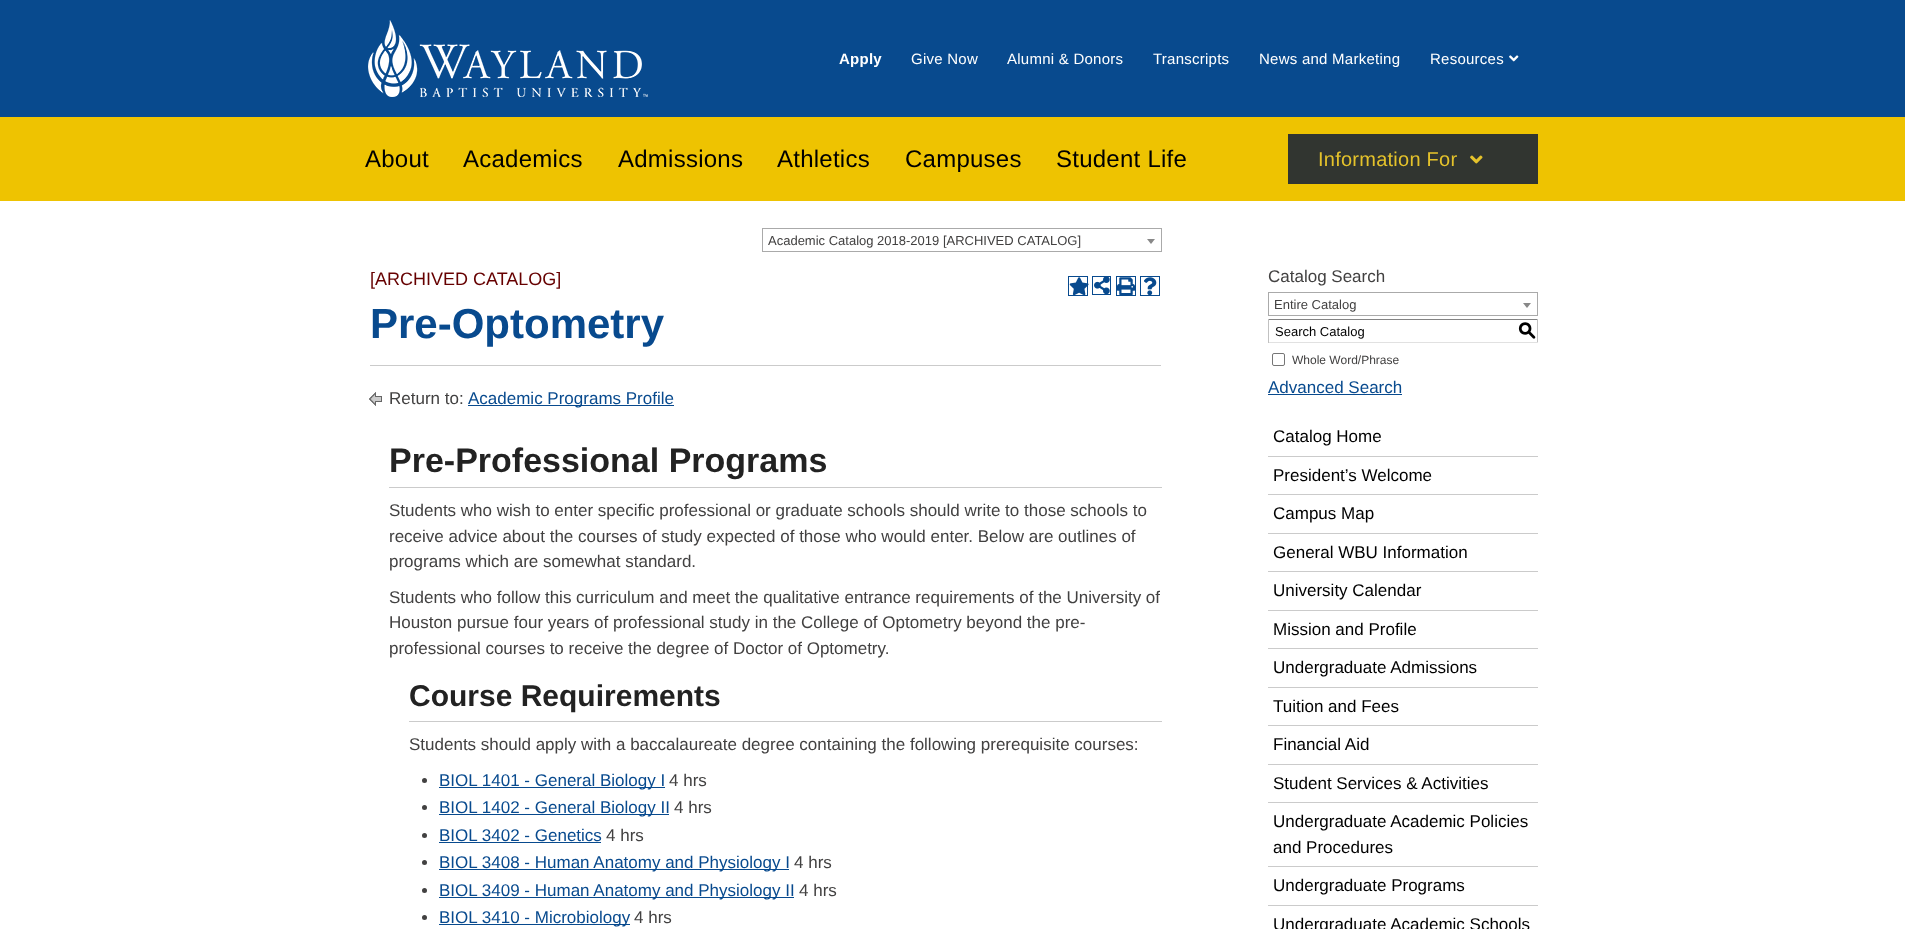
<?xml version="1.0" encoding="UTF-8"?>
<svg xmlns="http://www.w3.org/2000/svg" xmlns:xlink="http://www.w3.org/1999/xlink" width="1905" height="929">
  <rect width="100%" height="100%" fill="#ffffff" />
  <rect width="1905" height="117" fill="#084a8e" />
  <image x="368" y="20" width="280" height="77" xlink:href="image1.png" />
  <image x="1509" y="55" width="10" height="7" xlink:href="image2.png" />
  <rect y="117" width="1905" height="84" fill="#eec301" />
  <rect x="1288" y="134" width="250" height="50" fill="#313530" />
  <image x="1470" y="155" width="13" height="9" xlink:href="image3.png" />
  <rect x="762.5" y="228.5" width="399" height="23" fill="none" stroke="#aaaaaa" />
  <path d="M 1147 239 h 8 l -4 5 z" fill="#888888" />
  <rect x="1068.5" y="276.5" width="19" height="19" fill="none" stroke="#084a8e" />
  <image x="1069" y="277" width="20" height="18" xlink:href="image4.png" />
  <rect x="1092.5" y="276.5" width="18" height="18" fill="none" stroke="#084a8e" />
  <image x="1094" y="277" width="16" height="17" xlink:href="image5.png" />
  <rect x="1116.5" y="276.5" width="19" height="19" fill="none" stroke="#084a8e" />
  <image x="1117" y="277" width="18" height="18" xlink:href="image6.png" />
  <rect x="1140.5" y="276.5" width="19" height="19" fill="none" stroke="#084a8e" />
  <image x="1144" y="277" width="13" height="18" xlink:href="image7.png" />
  <rect x="370" y="365" width="791" height="1" fill="#cbcbcb" />
  <image x="369" y="392" width="13" height="14" xlink:href="image8.png" />
  <rect x="468" y="405" width="206" height="1" fill="#084a8e" />
  <rect x="389" y="487" width="773" height="1" fill="#cbcbcb" />
  <rect x="409" y="721" width="753" height="1" fill="#cbcbcb" />
  <circle cx="424.5" cy="780.5" r="2.5" fill="#424141" />
  <rect x="439" y="787" width="226" height="1" fill="#084a8e" />
  <circle cx="424.5" cy="807.5" r="2.5" fill="#424141" />
  <rect x="439" y="814" width="230" height="1" fill="#084a8e" />
  <circle cx="424.5" cy="835.5" r="2.5" fill="#424141" />
  <rect x="439" y="842" width="162" height="1" fill="#084a8e" />
  <circle cx="424.5" cy="862.5" r="2.5" fill="#424141" />
  <rect x="439" y="869" width="350" height="1" fill="#084a8e" />
  <circle cx="424.5" cy="890.5" r="2.5" fill="#424141" />
  <rect x="439" y="897" width="355" height="1" fill="#084a8e" />
  <circle cx="424.5" cy="917.5" r="2.5" fill="#424141" />
  <rect x="439" y="924" width="191" height="1" fill="#084a8e" />
  <rect x="1268.5" y="292.5" width="269" height="23" fill="none" stroke="#aaaaaa" />
  <path d="M 1523 303 h 8 l -4 5 z" fill="#888888" />
  <rect x="1268" y="319" width="270" height="1" fill="#848484" />
  <rect x="1537" y="319" width="1" height="24" fill="#c1c1c1" />
  <rect x="1268" y="342" width="270" height="1" fill="#e1e1e1" />
  <rect x="1268" y="319" width="1" height="24" fill="#c1c1c1" />
  <rect x="1272.5" y="353.5" width="12" height="12" rx="1.5" fill="none" stroke="#767676" />
  <rect x="1268" y="394" width="134" height="1" fill="#084a8e" />
  <rect x="1268" y="456" width="270" height="1" fill="#cbcbcb" />
  <rect x="1268" y="494" width="270" height="1" fill="#cbcbcb" />
  <rect x="1268" y="533" width="270" height="1" fill="#cbcbcb" />
  <rect x="1268" y="571" width="270" height="1" fill="#cbcbcb" />
  <rect x="1268" y="610" width="270" height="1" fill="#cbcbcb" />
  <rect x="1268" y="648" width="270" height="1" fill="#cbcbcb" />
  <rect x="1268" y="687" width="270" height="1" fill="#cbcbcb" />
  <rect x="1268" y="725" width="270" height="1" fill="#cbcbcb" />
  <rect x="1268" y="764" width="270" height="1" fill="#cbcbcb" />
  <rect x="1268" y="802" width="270" height="1" fill="#cbcbcb" />
  <rect x="1268" y="866" width="270" height="1" fill="#cbcbcb" />
  <rect x="1268" y="905" width="270" height="1" fill="#cbcbcb" />
  <text x="839" y="64" style="font-family: Liberation Sans; font-size: 15px; font-weight: bold; letter-spacing: 0.25px; fill: #ffffff">Apply</text>
  <text x="911" y="64" style="font-family: Liberation Sans; font-size: 15px; letter-spacing: 0.25px; fill: #ffffff">Give Now</text>
  <text x="1007" y="64" style="font-family: Liberation Sans; font-size: 15px; letter-spacing: 0.25px; fill: #ffffff">Alumni &amp; Donors</text>
  <text x="1153" y="64" style="font-family: Liberation Sans; font-size: 15px; letter-spacing: 0.25px; fill: #ffffff">Transcripts</text>
  <text x="1259" y="64" style="font-family: Liberation Sans; font-size: 15px; letter-spacing: 0.25px; fill: #ffffff">News and Marketing</text>
  <text x="1430" y="64" style="font-family: Liberation Sans; font-size: 15px; letter-spacing: 0.25px; fill: #ffffff">Resources</text>
  <text x="365" y="167" style="font-family: Liberation Sans; font-size: 24px; letter-spacing: 0.25px; fill: #000000">About</text>
  <text x="463" y="167" style="font-family: Liberation Sans; font-size: 24px; letter-spacing: 0.25px; fill: #000000">Academics</text>
  <text x="618" y="167" style="font-family: Liberation Sans; font-size: 24px; letter-spacing: 0.25px; fill: #000000">Admissions</text>
  <text x="777" y="167" style="font-family: Liberation Sans; font-size: 24px; letter-spacing: 0.25px; fill: #000000">Athletics</text>
  <text x="905" y="167" style="font-family: Liberation Sans; font-size: 24px; letter-spacing: 0.25px; fill: #000000">Campuses</text>
  <text x="1056" y="167" style="font-family: Liberation Sans; font-size: 24px; letter-spacing: 0.25px; fill: #000000">Student Life</text>
  <text x="1318" y="166" style="font-family: Liberation Sans; font-size: 20px; letter-spacing: 0.25px; fill: #e4c22b">Information For</text>
  <text x="768" y="245" style="font-family: Liberation Sans; font-size: 13px; fill: #424141">Academic Catalog 2018-2019 [ARCHIVED CATALOG]</text>
  <text x="370" y="285" style="font-family: Liberation Sans; font-size: 18px; fill: #660000">[ARCHIVED CATALOG]</text>
  <text x="370" y="338" style="font-family: Liberation Sans; font-size: 42px; font-weight: bold; fill: #084a8e">Pre-Optometry</text>
  <text x="389" y="404" style="font-family: Liberation Sans; font-size: 17px; fill: #424141">Return to:</text>
  <text x="468" y="404" style="font-family: Liberation Sans; font-size: 17px; fill: #084a8e">Academic Programs Profile</text>
  <text x="389" y="472" style="font-family: Liberation Sans; font-size: 34px; font-weight: bold; fill: #222222">Pre-Professional Programs</text>
  <text x="389" y="516" style="font-family: Liberation Sans; font-size: 17px; fill: #424141">Students who wish to enter speciﬁc professional or graduate schools should write to those schools to</text>
  <text x="389" y="542" style="font-family: Liberation Sans; font-size: 17px; fill: #424141">receive advice about the courses of study expected of those who would enter. Below are outlines of</text>
  <text x="389" y="567" style="font-family: Liberation Sans; font-size: 17px; fill: #424141">programs which are somewhat standard.</text>
  <text x="389" y="603" style="font-family: Liberation Sans; font-size: 17px; fill: #424141">Students who follow this curriculum and meet the qualitative entrance requirements of the University of</text>
  <text x="389" y="628" style="font-family: Liberation Sans; font-size: 17px; fill: #424141">Houston pursue four years of professional study in the College of Optometry beyond the pre-</text>
  <text x="389" y="654" style="font-family: Liberation Sans; font-size: 17px; fill: #424141">professional courses to receive the degree of Doctor of Optometry.</text>
  <text x="409" y="706" style="font-family: Liberation Sans; font-size: 30px; font-weight: bold; fill: #222222">Course Requirements</text>
  <text x="409" y="750" style="font-family: Liberation Sans; font-size: 17px; fill: #424141">Students should apply with a baccalaureate degree containing the following prerequisite courses:</text>
  <text x="439" y="786" style="font-family: Liberation Sans; font-size: 17px; fill: #084a8e">BIOL 1401 - General Biology I</text>
  <text x="669" y="786" style="font-family: Liberation Sans; font-size: 17px; fill: #424141">4 hrs</text>
  <text x="439" y="813" style="font-family: Liberation Sans; font-size: 17px; fill: #084a8e">BIOL 1402 - General Biology II</text>
  <text x="674" y="813" style="font-family: Liberation Sans; font-size: 17px; fill: #424141">4 hrs</text>
  <text x="439" y="841" style="font-family: Liberation Sans; font-size: 17px; fill: #084a8e">BIOL 3402 - Genetics</text>
  <text x="606" y="841" style="font-family: Liberation Sans; font-size: 17px; fill: #424141">4 hrs</text>
  <text x="439" y="868" style="font-family: Liberation Sans; font-size: 17px; fill: #084a8e">BIOL 3408 - Human Anatomy and Physiology I</text>
  <text x="794" y="868" style="font-family: Liberation Sans; font-size: 17px; fill: #424141">4 hrs</text>
  <text x="439" y="896" style="font-family: Liberation Sans; font-size: 17px; fill: #084a8e">BIOL 3409 - Human Anatomy and Physiology II</text>
  <text x="799" y="896" style="font-family: Liberation Sans; font-size: 17px; fill: #424141">4 hrs</text>
  <text x="439" y="923" style="font-family: Liberation Sans; font-size: 17px; fill: #084a8e">BIOL 3410 - Microbiology</text>
  <text x="634" y="923" style="font-family: Liberation Sans; font-size: 17px; fill: #424141">4 hrs</text>
  <text x="1268" y="282" style="font-family: Liberation Sans; font-size: 17px; fill: #424141">Catalog Search</text>
  <text x="1274" y="309" style="font-family: Liberation Sans; font-size: 13px; fill: #424141">Entire Catalog</text>
  <text x="1275" y="336" style="font-family: Liberation Sans; font-size: 13px; fill: #000000">Search Catalog</text>
  <text x="1518" y="336" style="font-family: 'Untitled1'; font-size: 18px; font-weight: 500; fill: #000000">S</text>
  <text x="1292" y="364" style="font-family: Liberation Sans; font-size: 12px; fill: #424141">Whole Word/Phrase</text>
  <text x="1268" y="393" style="font-family: Liberation Sans; font-size: 17px; fill: #084a8e">Advanced Search</text>
  <text x="1273" y="442" style="font-family: Liberation Sans; font-size: 17px; fill: #000000">Catalog Home</text>
  <text x="1273" y="481" style="font-family: Liberation Sans; font-size: 17px; fill: #000000">President’s Welcome</text>
  <text x="1273" y="519" style="font-family: Liberation Sans; font-size: 17px; fill: #000000">Campus Map</text>
  <text x="1273" y="558" style="font-family: Liberation Sans; font-size: 17px; fill: #000000">General WBU Information</text>
  <text x="1273" y="596" style="font-family: Liberation Sans; font-size: 17px; fill: #000000">University Calendar</text>
  <text x="1273" y="635" style="font-family: Liberation Sans; font-size: 17px; fill: #000000">Mission and Profile</text>
  <text x="1273" y="673" style="font-family: Liberation Sans; font-size: 17px; fill: #000000">Undergraduate Admissions</text>
  <text x="1273" y="712" style="font-family: Liberation Sans; font-size: 17px; fill: #000000">Tuition and Fees</text>
  <text x="1273" y="750" style="font-family: Liberation Sans; font-size: 17px; fill: #000000">Financial Aid</text>
  <text x="1273" y="789" style="font-family: Liberation Sans; font-size: 17px; fill: #000000">Student Services &amp; Activities</text>
  <text x="1273" y="827" style="font-family: Liberation Sans; font-size: 17px; fill: #000000">Undergraduate Academic Policies</text>
  <text x="1273" y="853" style="font-family: Liberation Sans; font-size: 17px; fill: #000000">and Procedures</text>
  <text x="1273" y="891" style="font-family: Liberation Sans; font-size: 17px; fill: #000000">Undergraduate Programs</text>
  <text x="1273" y="930" style="font-family: Liberation Sans; font-size: 17px; fill: #000000">Undergraduate Academic Schools</text>
</svg>
